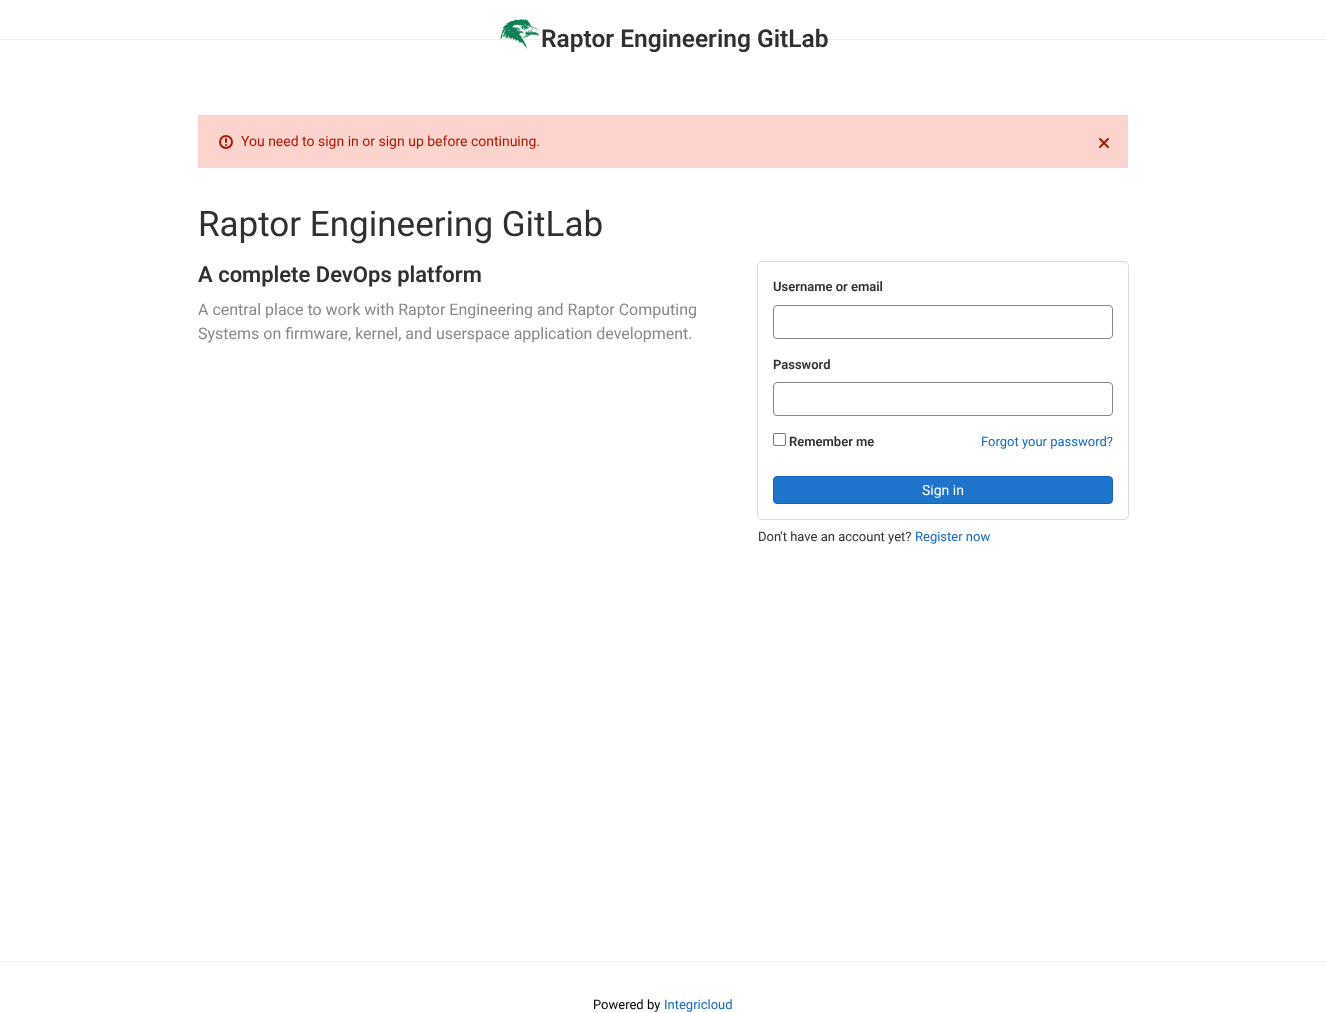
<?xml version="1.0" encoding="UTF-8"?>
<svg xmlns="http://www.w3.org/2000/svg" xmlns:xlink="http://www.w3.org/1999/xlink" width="1326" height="1013">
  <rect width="100%" height="100%" fill="#ffffff" />
  <rect y="39" width="1326" height="1" fill="#f0f0f0" />
  <image x="499" y="19" width="41" height="30" xlink:href="image1.png" />
  <rect x="198" y="115" width="930" height="53" fill="#fdd4cd" />
  <image x="219" y="135" width="14" height="14" xlink:href="image2.png" />
  <image x="1099" y="138" width="10" height="10" xlink:href="image3.png" />
  <rect x="757.5" y="261.5" width="371" height="258" rx="4.5" fill="none" stroke="#dbdbdb" />
  <rect x="773.5" y="305.5" width="339" height="33" rx="3.5" fill="none" stroke="#868686" />
  <rect x="773.5" y="382.5" width="339" height="33" rx="3.5" fill="none" stroke="#868686" />
  <rect x="773.5" y="433.5" width="12" height="12" rx="1.5" fill="none" stroke="#767676" />
  <rect x="773.5" y="476.5" width="339" height="27" rx="3.5" fill="#1f75cb" stroke="#1068bf" />
  <rect y="961" width="1326" height="1" fill="#eeeeee" />
  <text x="541" y="47" style="font-family: Roboto; font-size: 24.5px; font-weight: 600; fill: #303030">Raptor Engineering GitLab</text>
  <text x="241" y="146" style="font-family: Roboto; font-size: 14px; fill: #ae1800">You need to sign in or sign up before continuing.</text>
  <text x="198" y="236" style="font-family: Roboto; font-size: 35px; fill: #303030">Raptor Engineering GitLab</text>
  <text x="198" y="282" style="font-family: Roboto; font-size: 22px; font-weight: 600; fill: #303030">A complete DevOps platform</text>
  <text x="198" y="315" style="font-family: Roboto; font-size: 16px; fill: #888888">A central place to work with Raptor Engineering and Raptor Computing</text>
  <text x="198" y="339" style="font-family: Roboto; font-size: 16px; fill: #888888">Systems on firmware, kernel, and userspace application development.</text>
  <text x="773" y="291" style="font-family: Roboto; font-size: 13px; font-weight: 600; fill: #303030">Username or email</text>
  <text x="773" y="369" style="font-family: Roboto; font-size: 13px; font-weight: 600; fill: #303030">Password</text>
  <text x="789" y="446" style="font-family: Roboto; font-size: 13px; font-weight: 600; fill: #303030">Remember me</text>
  <text x="981" y="446" style="font-family: Roboto; font-size: 13px; fill: #1068bf">Forgot your password?</text>
  <text x="922" y="495" style="font-family: Roboto; font-size: 14px; fill: #ffffff">Sign in</text>
  <text x="758" y="541" style="font-family: Roboto; font-size: 13px; fill: #303030">Don't have an account yet?</text>
  <text x="915" y="541" style="font-family: Roboto; font-size: 13px; fill: #1068bf">Register now</text>
  <text x="593" y="1009" style="font-family: Roboto; font-size: 13px; fill: #000000">Powered by</text>
  <text x="664" y="1009" style="font-family: Roboto; font-size: 13px; fill: #1068bf">Integricloud</text>
</svg>
